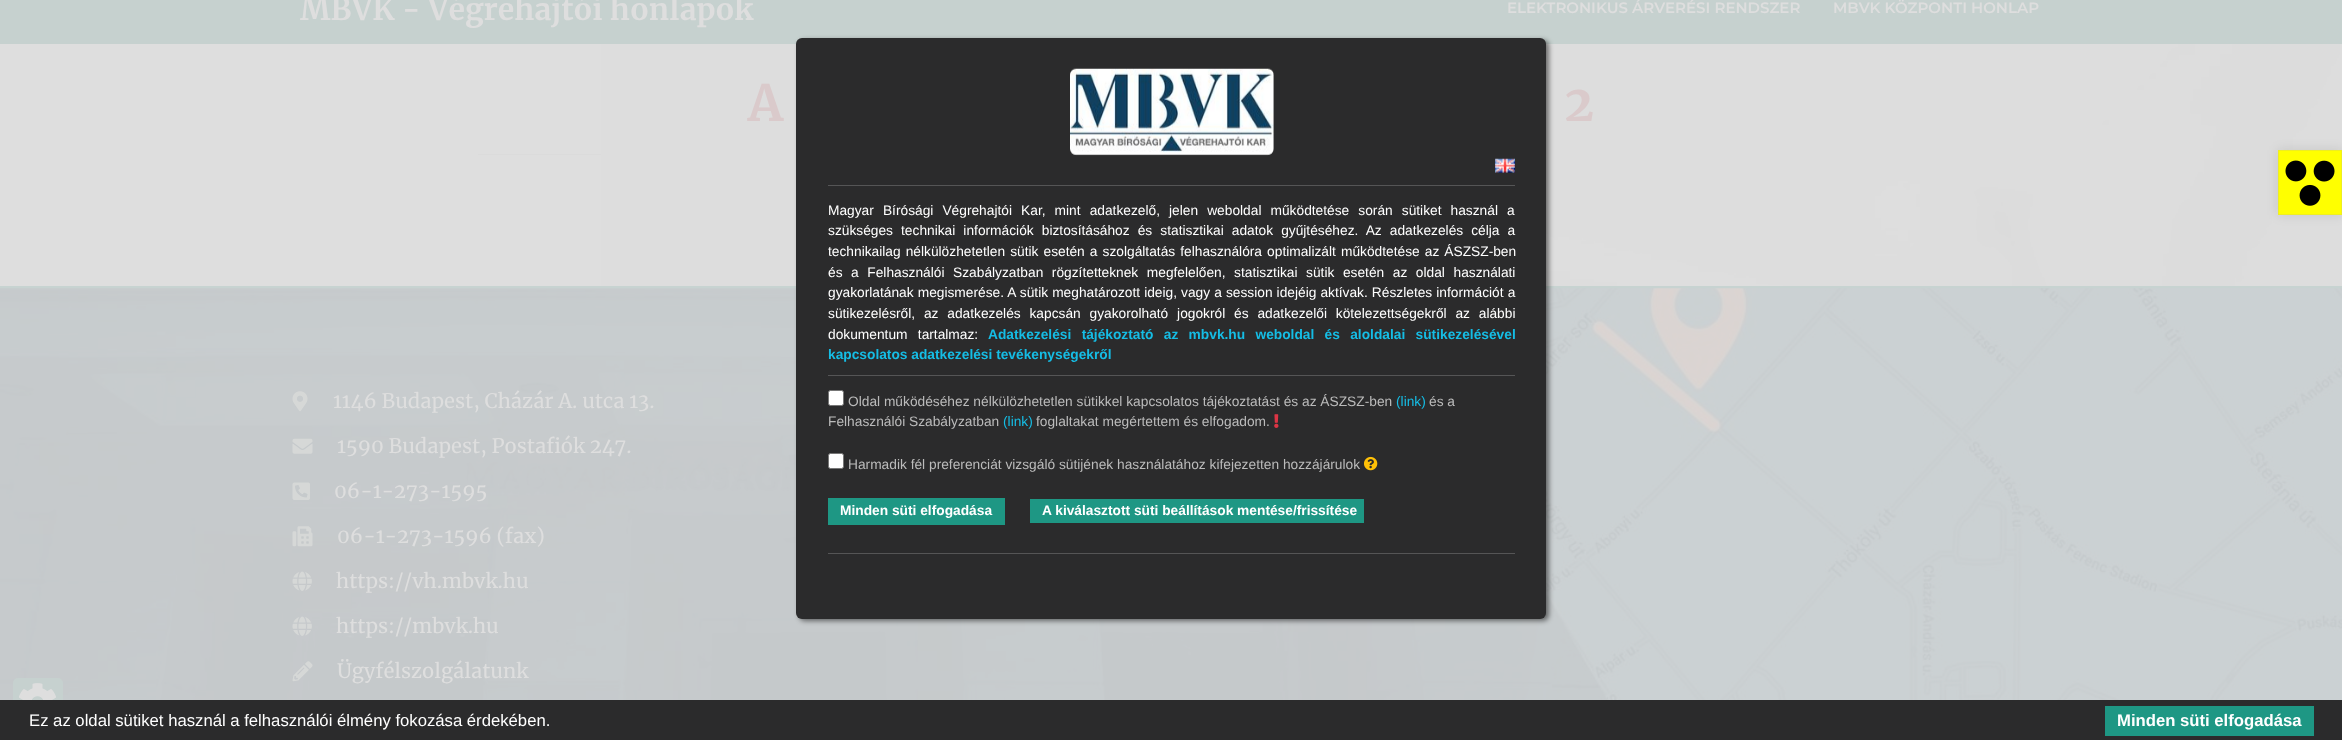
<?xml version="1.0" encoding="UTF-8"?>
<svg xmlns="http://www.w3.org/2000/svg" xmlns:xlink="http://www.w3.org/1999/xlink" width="2342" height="740">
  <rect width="100%" height="100%" fill="#dedede" />
  <image x="601" y="44" width="1741" height="242" xlink:href="image1.png" />
  <rect width="2342" height="44" fill="#c6d1cf" />
  <rect x="478" y="154" width="123" height="1" fill="#c4c4c4" fill-opacity="0.1" />
  <rect x="2278" y="150" width="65" height="65" fill="#000000" fill-opacity="0.1" filter="blur(6px)" />
  <rect x="2278" y="150" width="64" height="65" fill="#eeee22" />
  <image x="2279" y="151" width="62" height="63" xlink:href="image2.png" />
  <rect y="286" width="2342" height="3" fill="#c7d3d1" />
  <image x="0" y="288" width="2342" height="412" xlink:href="image7.png" />
  <rect x="799" y="40" width="750" height="581" rx="6" fill="#000000" fill-opacity="0.5" filter="blur(2.5px)" />
  <rect x="796" y="38" width="750" height="581" rx="6" fill="#2b2b2c" />
  <image x="1070" y="68" width="204" height="88" xlink:href="image3.png" />
  <image x="1495" y="158" width="20" height="15" xlink:href="image4.png" />
  <rect x="828" y="185" width="687" height="1" fill="#555556" />
  <rect x="828" y="375" width="687" height="1" fill="#555556" />
  <rect x="828.5" y="390.5" width="15" height="15" rx="2" fill="#ffffff" stroke="#767676" />
  <image x="1274" y="414" width="5" height="14" xlink:href="image5.png" />
  <rect x="828.5" y="453.5" width="15" height="15" rx="2" fill="#ffffff" stroke="#767676" />
  <image x="1364" y="456" width="14" height="15" xlink:href="image6.png" />
  <rect x="828" y="498" width="177" height="27" fill="#1e9784" />
  <rect x="1030" y="499" width="334" height="24" fill="#1e9784" />
  <rect x="828" y="553" width="687" height="1" fill="#555556" />
  <rect x="13" y="678" width="50" height="50" rx="5" fill="#c6d1cf" />
  <rect y="700" width="2342" height="40" fill="#2b2b2c" />
  <rect x="2105" y="706" width="209" height="30" fill="#1e9784" />
  <image x="292" y="391" width="16" height="21" xlink:href="image8.png" />
  <image x="292" y="438" width="21" height="16" xlink:href="image9.png" />
  <image x="292" y="482" width="18" height="18" xlink:href="image10.png" />
  <image x="292" y="526" width="21" height="21" xlink:href="image11.png" />
  <image x="292" y="571" width="20" height="20" xlink:href="image12.png" />
  <image x="292" y="616" width="20" height="20" xlink:href="image13.png" />
  <image x="292" y="661" width="21" height="21" xlink:href="image14.png" />
  <image x="19" y="683" width="37" height="17" xlink:href="image15.png" />
  <text x="300" y="20" style="font-family: Merriweather; font-size: 30px; font-weight: bold; fill: #dedede">MBVK - Végrehajtói honlapok</text>
  <text x="1507" y="13" style="font-family: Montserrat; font-size: 15px; font-weight: 100; fill: #dedede">ELEKTRONIKUS ÁRVERÉSI RENDSZER</text>
  <text x="1833" y="13" style="font-family: Montserrat; font-size: 15px; font-weight: 100; fill: #dedede">MBVK KÖZPONTI HONLAP</text>
  <text x="748" y="121" style="font-family: Merriweather; font-size: 50px; font-weight: bold; fill: #dacacb">A</text>
  <text x="1564" y="121" style="font-family: Merriweather; font-size: 50px; font-weight: bold; fill: #dacacb">2</text>
  <text x="828" y="215" word-spacing="5.25" style="font-family: Liberation Sans; font-size: 13.75px; fill: #ffffff">Magyar Bírósági Végrehajtói Kar, mint adatkezelő, jelen weboldal működtetése során sütiket használ a</text>
  <text x="828" y="235" word-spacing="4.25" style="font-family: Liberation Sans; font-size: 13.75px; fill: #ffffff">szükséges technikai információk biztosításához és statisztikai adatok gyűjtéséhez. Az adatkezelés célja a</text>
  <text x="828" y="256" word-spacing="1.25" style="font-family: Liberation Sans; font-size: 13.75px; fill: #ffffff">technikailag nélkülözhetetlen sütik esetén a szolgáltatás felhasználóra optimalizált működtetése az ÁSZSZ-ben</text>
  <text x="828" y="277" word-spacing="4.75" style="font-family: Liberation Sans; font-size: 13.75px; fill: #ffffff">és a Felhasználói Szabályzatban rögzítetteknek megfelelően, statisztikai sütik esetén az oldal használati</text>
  <text x="828" y="297" word-spacing="0.25" style="font-family: Liberation Sans; font-size: 13.75px; fill: #ffffff">gyakorlatának megismerése. A sütik meghatározott ideig, vagy a session idejéig aktívak. Részletes információt a</text>
  <text x="828" y="318" word-spacing="5" style="font-family: Liberation Sans; font-size: 13.75px; fill: #ffffff">sütikezelésről, az adatkezelés kapcsán gyakorolható jogokról és adatkezelői kötelezettségekről az alábbi</text>
  <text x="828" y="339" word-spacing="6.5" style="font-family: Liberation Sans; font-size: 13.75px; fill: #ffffff">dokumentum tartalmaz:</text>
  <text x="988" y="339" word-spacing="6.5" style="font-family: Liberation Sans; font-size: 13.75px; font-weight: bold; fill: #15bde5">Adatkezelési tájékoztató az mbvk.hu weboldal és aloldalai sütikezelésével</text>
  <text x="828" y="359" style="font-family: Liberation Sans; font-size: 13.75px; font-weight: bold; fill: #15bde5">kapcsolatos adatkezelési tevékenységekről</text>
  <text x="848" y="406" style="font-family: Liberation Sans; font-size: 13.75px; fill: #bbbbbb">Oldal működéséhez nélkülözhetetlen sütikkel kapcsolatos tájékoztatást és az ÁSZSZ-ben</text>
  <text x="1396" y="406" style="font-family: Liberation Sans; font-size: 13.75px; fill: #15bde5">(link)</text>
  <text x="1429" y="406" style="font-family: Liberation Sans; font-size: 13.75px; fill: #bbbbbb">és a</text>
  <text x="828" y="426" style="font-family: Liberation Sans; font-size: 13.75px; fill: #bbbbbb">Felhasználói Szabályzatban</text>
  <text x="1003" y="426" style="font-family: Liberation Sans; font-size: 13.75px; fill: #15bde5">(link)</text>
  <text x="1036" y="426" style="font-family: Liberation Sans; font-size: 13.75px; fill: #bbbbbb">foglaltakat megértettem és elfogadom.</text>
  <text x="848" y="469" style="font-family: Liberation Sans; font-size: 13.75px; fill: #bbbbbb">Harmadik fél preferenciát vizsgáló sütijének használatához kifejezetten hozzájárulok</text>
  <text x="840" y="515" style="font-family: Liberation Sans; font-size: 13.75px; font-weight: bold; fill: #ffffff">Minden süti elfogadása</text>
  <text x="1042" y="515" style="font-family: Liberation Sans; font-size: 13.75px; font-weight: bold; fill: #ffffff">A kiválasztott süti beállítások mentése/frissítése</text>
  <text x="29" y="726" style="font-family: Liberation Sans; font-size: 16.7px; fill: #ffffff">Ez az oldal sütiket használ a felhasználói élmény fokozása érdekében.</text>
  <text x="2117" y="726" style="font-family: Liberation Sans; font-size: 16.7px; font-weight: bold; fill: #ffffff">Minden süti elfogadása</text>
  <text x="333" y="408" style="font-family: Merriweather; font-size: 20px; fill: #dedede">1146 Budapest, Cházár A. utca 13.</text>
  <text x="337" y="453" style="font-family: Merriweather; font-size: 20px; fill: #dedede">1590 Budapest, Postafiók 247.</text>
  <text x="334" y="498" style="font-family: Merriweather; font-size: 20px; fill: #dedede">06-1-273-1595</text>
  <text x="337" y="543" style="font-family: Merriweather; font-size: 20px; fill: #dedede">06-1-273-1596 (fax)</text>
  <text x="336" y="588" style="font-family: Merriweather; font-size: 20px; fill: #dedede">https://vh.mbvk.hu</text>
  <text x="336" y="633" style="font-family: Merriweather; font-size: 20px; fill: #dedede">https://mbvk.hu</text>
  <text x="337" y="678" style="font-family: Merriweather; font-size: 20px; fill: #dedede">Ügyfélszolgálatunk</text>
</svg>
